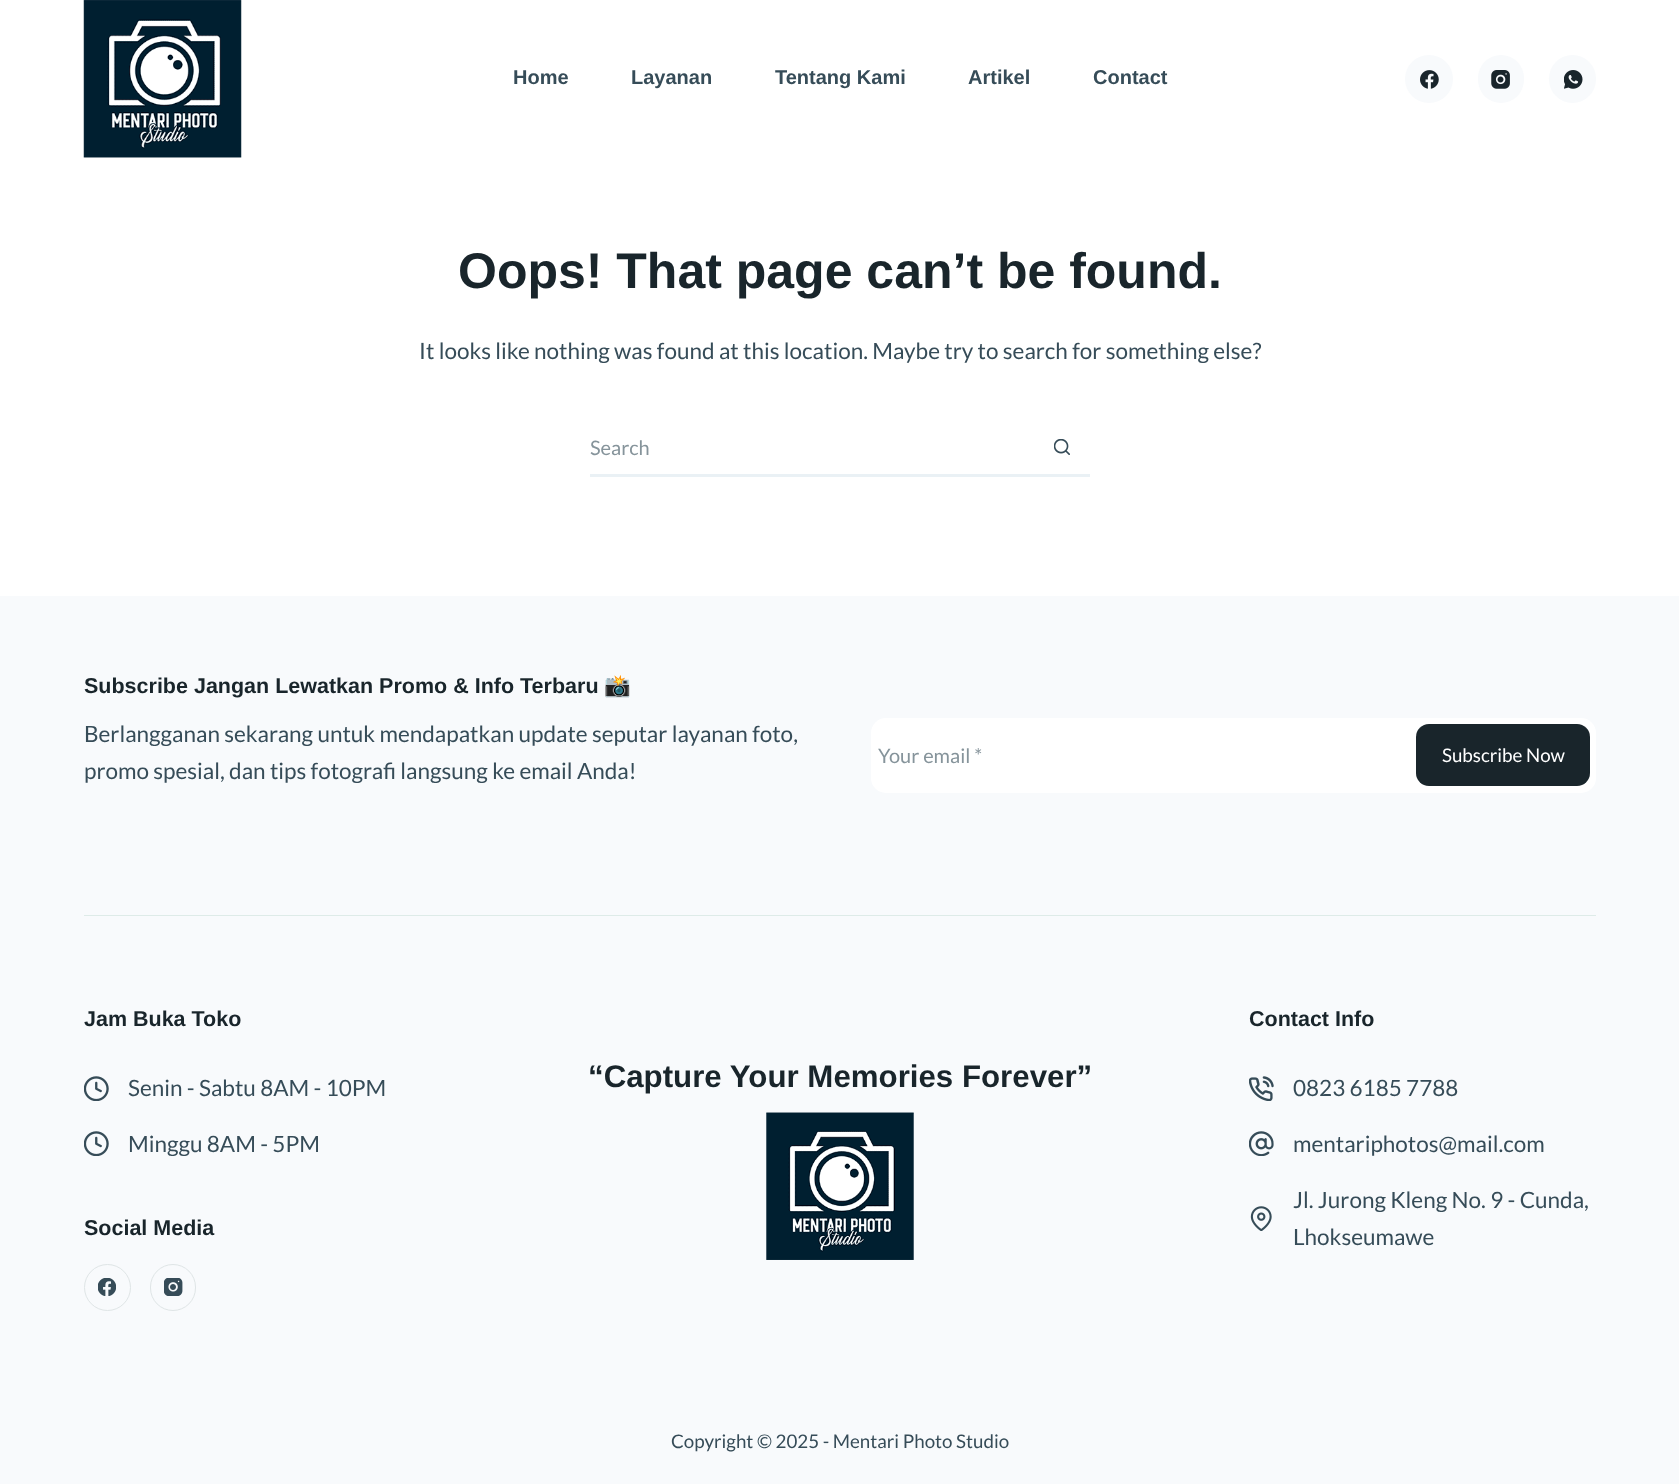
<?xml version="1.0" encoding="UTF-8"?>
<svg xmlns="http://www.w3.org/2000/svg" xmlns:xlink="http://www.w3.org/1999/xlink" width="1679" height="1484">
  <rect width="100%" height="100%" fill="#ffffff" />
  <image x="83" y="0" width="159" height="158" xlink:href="image1.png" />
  <circle cx="1429" cy="79" r="24" fill="#f8fafc" />
  <image x="1420" y="70" width="19" height="19" xlink:href="image2.png" />
  <rect x="1478" y="55" width="46" height="48" rx="23" fill="#f8fafc" />
  <image x="1491" y="70" width="19" height="19" xlink:href="image3.png" />
  <rect x="1549" y="55" width="47" height="48" rx="23.5" fill="#f8fafc" />
  <image x="1564" y="70" width="19" height="19" xlink:href="image4.png" />
  <rect x="590" y="474" width="500" height="3" fill="#eaf1f5" />
  <image x="1054" y="439" width="16" height="16" xlink:href="image5.png" />
  <rect y="596" width="1679" height="888" fill="#f8fafc" />
  <rect x="84" y="915" width="1512" height="1" fill="#deebe8" />
  <rect x="871" y="718" width="725" height="75" rx="15" fill="#ffffff" />
  <rect x="1416" y="724" width="174" height="62" rx="13" fill="#19252b" />
  <image x="84" y="1076" width="25" height="25" xlink:href="image6.png" />
  <image x="84" y="1131" width="25" height="25" xlink:href="image6.png" />
  <circle cx="107.5" cy="1287.5" r="23" fill="none" stroke="#dfe5e6" />
  <image x="98" y="1278" width="18" height="18" xlink:href="image7.png" />
  <rect x="150.5" y="1264.5" width="45" height="46" rx="22.5" fill="none" stroke="#dfe5e6" />
  <image x="164" y="1278" width="19" height="18" xlink:href="image8.png" />
  <image x="766" y="1112" width="148" height="148" xlink:href="image9.png" />
  <image x="1249" y="1076" width="25" height="25" xlink:href="image10.png" />
  <image x="1249" y="1131" width="25" height="25" xlink:href="image11.png" />
  <image x="1250" y="1206" width="22" height="25" xlink:href="image12.png" />
  <text x="513" y="84" style="font-family: Liberation Sans; font-size: 20px; font-weight: bold; fill: #364c58">Home</text>
  <text x="631" y="84" style="font-family: Liberation Sans; font-size: 20px; font-weight: bold; fill: #364c58">Layanan</text>
  <text x="775" y="84" style="font-family: Liberation Sans; font-size: 20px; font-weight: bold; fill: #364c58">Tentang Kami</text>
  <text x="968" y="84" style="font-family: Liberation Sans; font-size: 20px; font-weight: bold; fill: #364c58">Artikel</text>
  <text x="1093" y="84" style="font-family: Liberation Sans; font-size: 20px; font-weight: bold; fill: #364c58">Contact</text>
  <text x="458" y="288" style="font-family: Liberation Sans; font-size: 50px; font-weight: bold; fill: #19252b">Oops! That page can’t be found.</text>
  <text x="419" y="359" style="font-family: Lato; font-size: 22.5px; fill: #364c58">It looks like nothing was found at this location. Maybe try to search for something else?</text>
  <text x="590" y="455" style="font-family: Lato; font-size: 20px; fill: #86949b">Search</text>
  <text x="84" y="693" style="font-family: Liberation Sans; font-size: 21.5px; font-weight: bold; fill: #19252b">Subscribe Jangan Lewatkan Promo &amp; Info Terbaru</text>
  <text x="604" y="693" style="font-family: Noto Color Emoji; font-size: 21.5px; font-weight: bold; fill: #19252b">📸</text>
  <text x="84" y="742" style="font-family: Lato; font-size: 22.5px; fill: #364c58">Berlangganan sekarang untuk mendapatkan update seputar layanan foto,</text>
  <text x="84" y="779" style="font-family: Lato; font-size: 22.5px; fill: #364c58">promo spesial, dan tips fotografi langsung ke email Anda!</text>
  <text x="878" y="763" style="font-family: Lato; font-size: 20px; fill: #86949b">Your email *</text>
  <text x="1442" y="762" style="font-family: Lato; font-size: 18.75px; fill: #ffffff">Subscribe Now</text>
  <text x="84" y="1026" style="font-family: Liberation Sans; font-size: 21.5px; font-weight: bold; fill: #19252b">Jam Buka Toko</text>
  <text x="128" y="1096" style="font-family: Lato; font-size: 22.5px; fill: #364c58">Senin - Sabtu 8AM - 10PM</text>
  <text x="128" y="1152" style="font-family: Lato; font-size: 22.5px; fill: #364c58">Minggu 8AM - 5PM</text>
  <text x="84" y="1235" style="font-family: Liberation Sans; font-size: 21.5px; font-weight: bold; fill: #19252b">Social Media</text>
  <text x="588" y="1087" style="font-family: Liberation Sans; font-size: 31.25px; font-weight: bold; fill: #19252b">“Capture Your Memories Forever”</text>
  <text x="1249" y="1026" style="font-family: Liberation Sans; font-size: 21.5px; font-weight: bold; fill: #19252b">Contact Info</text>
  <text x="1293" y="1096" style="font-family: Lato; font-size: 22.5px; fill: #364c58">0823 6185 7788</text>
  <text x="1293" y="1152" style="font-family: Lato; font-size: 22.5px; fill: #364c58">mentariphotos@mail.com</text>
  <text x="1293" y="1208" style="font-family: Lato; font-size: 22.5px; fill: #364c58">Jl. Jurong Kleng No. 9 - Cunda,</text>
  <text x="1293" y="1245" style="font-family: Lato; font-size: 22.5px; fill: #364c58">Lhokseumawe</text>
  <text x="671" y="1448" style="font-family: Lato; font-size: 18.75px; fill: #364c58">Copyright © 2025 - Mentari Photo Studio</text>
</svg>
